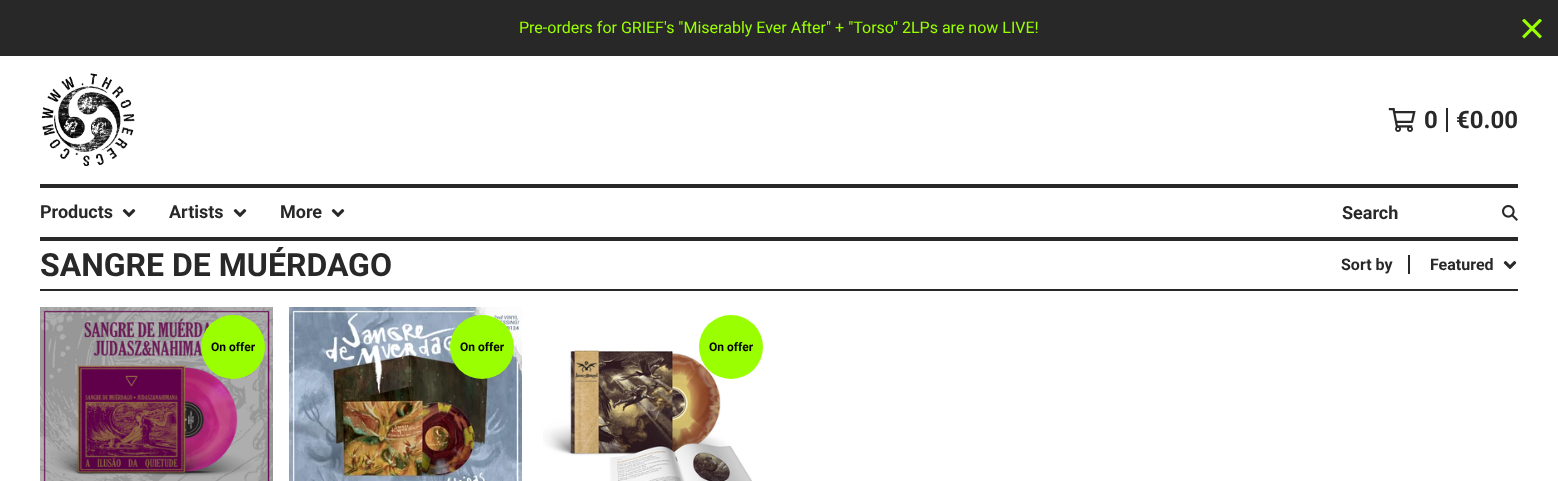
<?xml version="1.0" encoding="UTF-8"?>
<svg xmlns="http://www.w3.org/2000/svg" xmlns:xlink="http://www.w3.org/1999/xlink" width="1558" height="481">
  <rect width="100%" height="100%" fill="#ffffff" />
  <rect width="1558" height="56" fill="#282828" />
  <image x="1522" y="19" width="20" height="20" xlink:href="image1.png" />
  <rect x="40" y="184" width="1478" height="4" fill="#282828" />
  <image x="41" y="73" width="94" height="94" xlink:href="image2.png" />
  <image x="1388" y="108" width="28" height="24" xlink:href="image3.png" />
  <rect x="1446" y="108" width="2" height="24" fill="#282828" />
  <rect x="40" y="237" width="1478" height="4" fill="#282828" />
  <image x="122" y="209" width="14" height="8" xlink:href="image4.png" />
  <image x="233" y="209" width="14" height="8" xlink:href="image4.png" />
  <image x="331" y="209" width="14" height="8" xlink:href="image4.png" />
  <image x="1502" y="205" width="16" height="16" xlink:href="image5.png" />
  <rect x="40" y="289" width="1478" height="2" fill="#282828" />
  <rect x="1408" y="255" width="2" height="19" fill="#282828" />
  <image x="1503" y="261" width="14" height="8" xlink:href="image4.png" />
  <image x="40" y="307" width="233" height="174" xlink:href="image6.png" />
  <circle cx="233" cy="347" r="32" fill="#9aff00" />
  <image x="289" y="307" width="233" height="174" xlink:href="image7.png" />
  <circle cx="482" cy="347" r="32" fill="#9aff00" />
  <image x="543" y="350" width="209" height="131" xlink:href="image8.png" />
  <circle cx="731" cy="347" r="32" fill="#9aff00" />
  <text x="519" y="33" style="font-family: Roboto; font-size: 16px; fill: #9aff00">Pre-orders for GRIEF's "Miserably Ever After" + "Torso" 2LPs are now LIVE!</text>
  <text x="1424" y="128" style="font-family: Roboto; font-size: 24px; font-weight: bold; fill: #282828">0</text>
  <text x="1456" y="128" style="font-family: Roboto; font-size: 24px; font-weight: bold; fill: #282828">€0.00</text>
  <text x="40" y="218" style="font-family: Roboto; font-size: 18px; font-weight: bold; fill: #282828">Products</text>
  <text x="169" y="218" style="font-family: Roboto; font-size: 18px; font-weight: bold; fill: #282828">Artists</text>
  <text x="280" y="218" style="font-family: Roboto; font-size: 18px; font-weight: bold; fill: #282828">More</text>
  <text x="1342" y="219" style="font-family: Roboto; font-size: 18px; font-weight: bold; fill: #282828">Search</text>
  <text x="40" y="276" style="font-family: Roboto; font-size: 32px; font-weight: bold; fill: #282828">SANGRE DE MUÉRDAGO</text>
  <text x="1341" y="270" style="font-family: Roboto; font-size: 16px; font-weight: bold; fill: #282828">Sort by</text>
  <text x="1430" y="270" style="font-family: Roboto; font-size: 16px; font-weight: bold; fill: #282828">Featured</text>
  <text x="211" y="351" style="font-family: Roboto; font-size: 12px; font-weight: bold; fill: #000000">On offer</text>
  <text x="460" y="351" style="font-family: Roboto; font-size: 12px; font-weight: bold; fill: #000000">On offer</text>
  <text x="709" y="351" style="font-family: Roboto; font-size: 12px; font-weight: bold; fill: #000000">On offer</text>
</svg>
